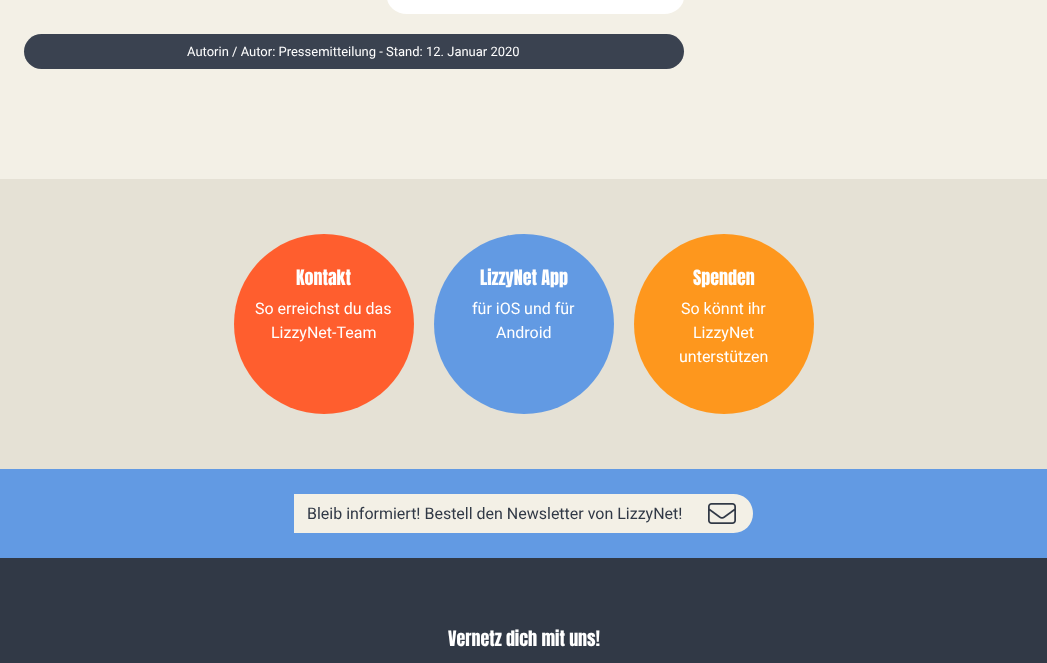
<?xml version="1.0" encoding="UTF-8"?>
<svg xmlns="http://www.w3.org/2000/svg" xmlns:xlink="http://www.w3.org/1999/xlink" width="1047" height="663">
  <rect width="100%" height="100%" fill="#f3f0e6" />
  <rect x="387" y="-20" width="297" height="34" rx="20" fill="#ffffff" />
  <rect x="24" y="34" width="660" height="35" rx="17.5" fill="#3a4250" />
  <rect y="179" width="1047" height="290" fill="#e5e1d5" />
  <circle cx="324" cy="324" r="90" fill="#ff5e2e" />
  <circle cx="524" cy="324" r="90" fill="#629ae3" />
  <circle cx="724" cy="324" r="90" fill="#fe971d" />
  <rect y="469" width="1047" height="89" fill="#629ae3" />
  <path d="M 294 494 h 439.5 c 11 0 19.5 8.5 19.5 19.5 c 0 11 -8.5 19.5 -19.5 19.5 h -439.5 z" fill="#f3f0e6" />
  <image x="708" y="503" width="28" height="21" xlink:href="image1.png" />
  <rect y="558" width="1047" height="105" fill="#313946" />
  <text x="187" y="56" style="font-family: Roboto; font-size: 13px; fill: #ffffff">Autorin / Autor: Pressemitteilung - Stand: 12. Januar 2020</text>
  <text x="296" y="285" style="font-family: Anton; font-size: 18px; fill: #ffffff">Kontakt</text>
  <text x="255" y="314" style="font-family: Roboto; font-size: 16px; fill: #ffffff">So erreichst du das</text>
  <text x="271" y="338" style="font-family: Roboto; font-size: 16px; fill: #ffffff">LizzyNet-Team</text>
  <text x="480" y="285" style="font-family: Anton; font-size: 18px; fill: #ffffff">LizzyNet App</text>
  <text x="472" y="314" style="font-family: Roboto; font-size: 16px; fill: #ffffff">für iOS und für</text>
  <text x="496" y="338" style="font-family: Roboto; font-size: 16px; fill: #ffffff">Android</text>
  <text x="693" y="285" style="font-family: Anton; font-size: 18px; fill: #ffffff">Spenden</text>
  <text x="681" y="314" style="font-family: Roboto; font-size: 16px; fill: #ffffff">So könnt ihr</text>
  <text x="693" y="338" style="font-family: Roboto; font-size: 16px; fill: #ffffff">LizzyNet</text>
  <text x="679" y="362" style="font-family: Roboto; font-size: 16px; fill: #ffffff">unterstützen</text>
  <text x="307" y="519" style="font-family: Roboto; font-size: 16px; fill: #313946">Bleib informiert! Bestell den Newsletter von LizzyNet!</text>
  <text x="448" y="646" style="font-family: Anton; font-size: 18px; fill: #ffffff">Vernetz dich mit uns!</text>
</svg>
